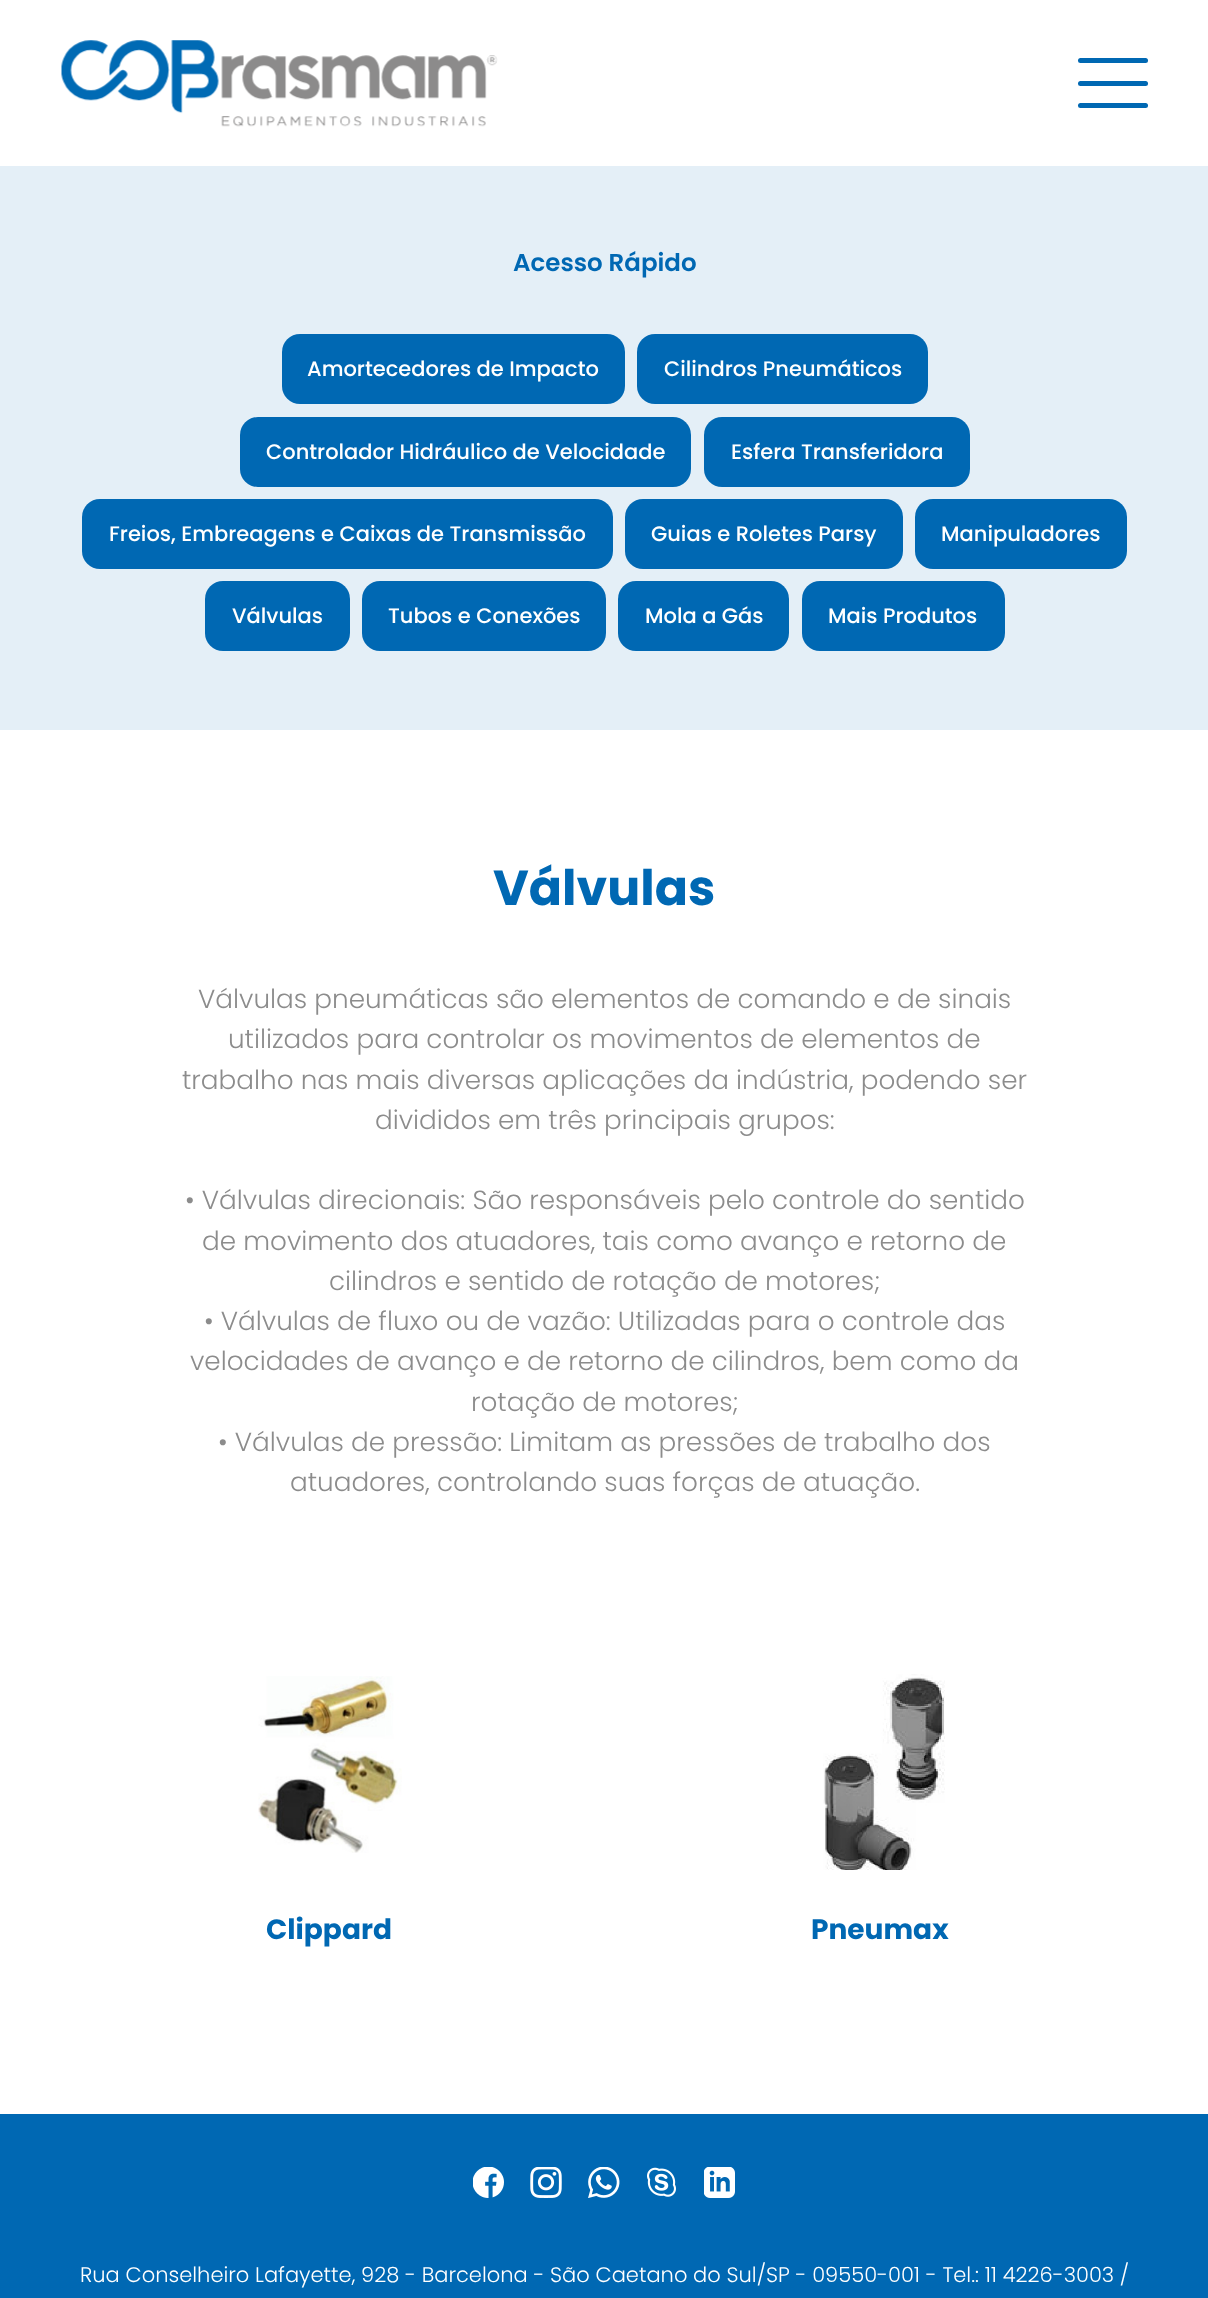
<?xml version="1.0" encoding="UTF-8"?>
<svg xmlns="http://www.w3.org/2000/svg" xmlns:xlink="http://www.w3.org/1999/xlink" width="1208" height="2298">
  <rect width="100%" height="100%" fill="#ffffff" />
  <image x="61" y="40" width="437" height="87" xlink:href="image1.png" />
  <rect x="1078" y="58" width="70" height="5" rx="2.5" fill="#0068b3" />
  <rect x="1078" y="81" width="70" height="5" rx="2.5" fill="#0068b3" />
  <rect x="1078" y="103" width="70" height="5" rx="2.5" fill="#0068b3" />
  <rect y="166" width="1208" height="564" fill="#e4eff7" />
  <rect x="282" y="334" width="343" height="70" rx="18" fill="#0068b3" />
  <rect x="637" y="334" width="291" height="70" rx="18" fill="#0068b3" />
  <rect x="240" y="417" width="451" height="70" rx="18" fill="#0068b3" />
  <rect x="704" y="417" width="266" height="70" rx="18" fill="#0068b3" />
  <rect x="82" y="499" width="531" height="70" rx="18" fill="#0068b3" />
  <rect x="625" y="499" width="278" height="70" rx="18" fill="#0068b3" />
  <rect x="915" y="499" width="212" height="70" rx="18" fill="#0068b3" />
  <rect x="205" y="581" width="145" height="70" rx="18" fill="#0068b3" />
  <rect x="362" y="581" width="244" height="70" rx="18" fill="#0068b3" />
  <rect x="618" y="581" width="171" height="70" rx="18" fill="#0068b3" />
  <rect x="802" y="581" width="203" height="70" rx="18" fill="#0068b3" />
  <image x="258" y="1676" width="144" height="177" xlink:href="image2.png" />
  <image x="823" y="1674" width="122" height="196" xlink:href="image3.png" />
  <rect y="2114" width="1208" height="184" fill="#0068b3" />
  <image x="473" y="2167" width="31" height="31" xlink:href="image4.png" />
  <image x="530" y="2167" width="32" height="31" xlink:href="image5.png" />
  <image x="588" y="2167" width="32" height="31" xlink:href="image6.png" />
  <image x="647" y="2167" width="29" height="30" xlink:href="image7.png" />
  <image x="704" y="2167" width="31" height="31" xlink:href="image8.png" />
  <text x="513" y="271" style="font-family: Poppins; font-size: 24.5px; font-weight: 600; fill: #0068b3">Acesso Rápido</text>
  <text x="307" y="376" style="font-family: Poppins; font-size: 21px; font-weight: 500; fill: #ffffff">Amortecedores de Impacto</text>
  <text x="664" y="376" style="font-family: Poppins; font-size: 21px; font-weight: 500; fill: #ffffff">Cilindros Pneumáticos</text>
  <text x="266" y="459" style="font-family: Poppins; font-size: 21px; font-weight: 500; fill: #ffffff">Controlador Hidráulico de Velocidade</text>
  <text x="731" y="459" style="font-family: Poppins; font-size: 21px; font-weight: 500; fill: #ffffff">Esfera Transferidora</text>
  <text x="109" y="541" style="font-family: Poppins; font-size: 21px; font-weight: 500; fill: #ffffff">Freios, Embreagens e Caixas de Transmissão</text>
  <text x="651" y="541" style="font-family: Poppins; font-size: 21px; font-weight: 500; fill: #ffffff">Guias e Roletes Parsy</text>
  <text x="941" y="541" style="font-family: Poppins; font-size: 21px; font-weight: 500; fill: #ffffff">Manipuladores</text>
  <text x="232" y="623" style="font-family: Poppins; font-size: 21px; font-weight: 500; fill: #ffffff">Válvulas</text>
  <text x="388" y="623" style="font-family: Poppins; font-size: 21px; font-weight: 500; fill: #ffffff">Tubos e Conexões</text>
  <text x="645" y="623" style="font-family: Poppins; font-size: 21px; font-weight: 500; fill: #ffffff">Mola a Gás</text>
  <text x="828" y="623" style="font-family: Poppins; font-size: 21px; font-weight: 500; fill: #ffffff">Mais Produtos</text>
  <text x="493" y="905" style="font-family: Poppins; font-size: 49px; font-weight: bold; fill: #0068b3">Válvulas</text>
  <text x="198" y="1008" style="font-family: Poppins; font-size: 26.25px; font-weight: 300; fill: #8c8c8c">Válvulas pneumáticas são elementos de comando e de sinais</text>
  <text x="228" y="1048" style="font-family: Poppins; font-size: 26.25px; font-weight: 300; fill: #8c8c8c">utilizados para controlar os movimentos de elementos de</text>
  <text x="182" y="1089" style="font-family: Poppins; font-size: 26.25px; font-weight: 300; fill: #8c8c8c">trabalho nas mais diversas aplicações da indústria, podendo ser</text>
  <text x="375" y="1129" style="font-family: Poppins; font-size: 26.25px; font-weight: 300; fill: #8c8c8c">divididos em três principais grupos:</text>
  <text x="185" y="1209" style="font-family: Poppins; font-size: 26.25px; font-weight: 300; fill: #8c8c8c">• Válvulas direcionais: São responsáveis pelo controle do sentido</text>
  <text x="202" y="1250" style="font-family: Poppins; font-size: 26.25px; font-weight: 300; fill: #8c8c8c">de movimento dos atuadores, tais como avanço e retorno de</text>
  <text x="329" y="1290" style="font-family: Poppins; font-size: 26.25px; font-weight: 300; fill: #8c8c8c">cilindros e sentido de rotação de motores;</text>
  <text x="204" y="1330" style="font-family: Poppins; font-size: 26.25px; font-weight: 300; fill: #8c8c8c">• Válvulas de fluxo ou de vazão: Utilizadas para o controle das</text>
  <text x="190" y="1370" style="font-family: Poppins; font-size: 26.25px; font-weight: 300; fill: #8c8c8c">velocidades de avanço e de retorno de cilindros, bem como da</text>
  <text x="471" y="1411" style="font-family: Poppins; font-size: 26.25px; font-weight: 300; fill: #8c8c8c">rotação de motores;</text>
  <text x="218" y="1451" style="font-family: Poppins; font-size: 26.25px; font-weight: 300; fill: #8c8c8c">• Válvulas de pressão: Limitam as pressões de trabalho dos</text>
  <text x="290" y="1491" style="font-family: Poppins; font-size: 26.25px; font-weight: 300; fill: #8c8c8c">atuadores, controlando suas forças de atuação.</text>
  <text x="266" y="1939" style="font-family: Poppins; font-size: 28px; font-weight: bold; fill: #0068b3">Clippard</text>
  <text x="811" y="1939" style="font-family: Poppins; font-size: 28px; font-weight: bold; fill: #0068b3">Pneumax</text>
  <text x="80" y="2282" style="font-family: Poppins; font-size: 21px; font-weight: 300; fill: #ffffff">Rua Conselheiro Lafayette, 928 - Barcelona - São Caetano do Sul/SP - 09550-001 - Tel.: 11 4226-3003 /</text>
</svg>
